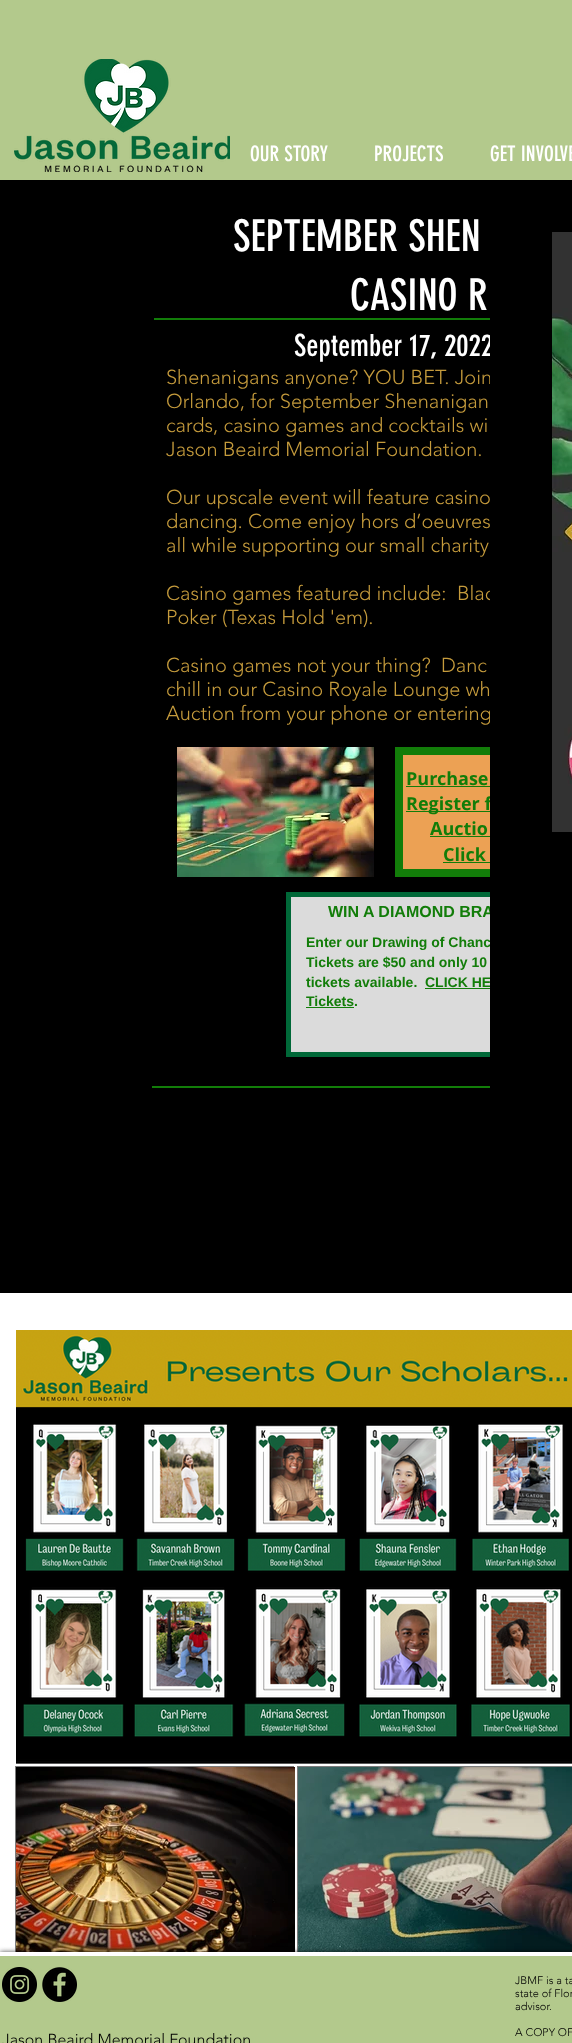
<?xml version="1.0" encoding="UTF-8"?>
<svg xmlns="http://www.w3.org/2000/svg" xmlns:xlink="http://www.w3.org/1999/xlink" width="572" height="2043">
  <rect width="100%" height="100%" fill="#ffffff" />
  <rect width="572" height="180" fill="#b3c98c" />
  <image x="14" y="59" width="216" height="113" xlink:href="image1.png" />
  <rect y="180" width="490" height="1113" fill="#000000" />
  <rect x="154" y="318" width="336" height="2" fill="#127d09" />
  <image x="177" y="747" width="197" height="130" xlink:href="image2.png" />
  <rect x="403" y="755" width="87" height="114" fill="#eca154" />
  <rect x="399" y="751" width="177" height="122" fill="none" stroke="#127d09" stroke-width="8" />
  <rect x="406" y="786" width="84" height="1" fill="#127d09" />
  <rect x="406" y="811" width="84" height="1" fill="#127d09" />
  <rect x="430" y="836" width="60" height="1" fill="#127d09" />
  <rect x="443" y="862" width="47" height="1" fill="#127d09" />
  <rect x="291" y="897" width="199" height="155" fill="#dbdbdb" />
  <rect x="288.5" y="894.5" width="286" height="160" fill="none" stroke="#006838" stroke-width="5" />
  <rect x="425" y="988" width="65" height="1" fill="#127d09" />
  <rect x="306" y="1007" width="48" height="1" fill="#127d09" />
  <rect x="152" y="1086" width="338" height="2" fill="#127d09" />
  <image x="16" y="1330" width="556" height="434" xlink:href="image4.png" />
  <rect x="15" y="1766" width="279" height="186" fill="#7c7c7c" />
  <image x="16" y="1767" width="279" height="185" xlink:href="image5.png" />
  <rect x="297" y="1766" width="275" height="186" fill="#7c7c7c" />
  <image x="298" y="1767" width="274" height="185" xlink:href="image6.png" />
  <rect y="1952" width="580" height="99" fill="#000000" fill-opacity="0.7" filter="blur(2.5px)" />
  <rect y="1956" width="572" height="87" fill="#b3c98c" />
  <rect y="1952" width="572" height="4" fill="#ffffff" />
  <image x="2" y="1967" width="35" height="35" xlink:href="image7.png" />
  <image x="42" y="1967" width="35" height="35" xlink:href="image8.png" />
  <text x="250" y="161" style="font-family: 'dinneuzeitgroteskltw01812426'; font-size: 21px; fill: #ffffff">OUR STORY</text>
  <text x="374" y="161" style="font-family: 'dinneuzeitgroteskltw01812426'; font-size: 21px; fill: #ffffff">PROJECTS</text>
  <text x="490" y="161" style="font-family: 'dinneuzeitgroteskltw01812426'; font-size: 21px; fill: #ffffff">GET INVOLVE</text>
  <text x="233" y="251" style="font-family: 'dinneuzeitgroteskltw01812426'; font-size: 43px; fill: #ffffff">SEPTEMBER SHEN</text>
  <text x="350" y="310" style="font-family: 'dinneuzeitgroteskltw01812426'; font-size: 43px; fill: #ffffff">CASINO R</text>
  <text x="294" y="356" style="font-family: 'dinneuzeitgroteskltw01812426'; font-size: 30px; fill: #ffffff">September 17, 2022</text>
  <text x="166" y="384" style="font-family: 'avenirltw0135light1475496'; font-size: 20px; font-weight: 300; fill: #c59b3c">Shenanigans anyone? YOU BET. Join</text>
  <text x="166" y="408" style="font-family: 'avenirltw0135light1475496'; font-size: 20px; font-weight: 300; fill: #c59b3c">Orlando, for September Shenanigan</text>
  <text x="166" y="432" style="font-family: 'avenirltw0135light1475496'; font-size: 20px; font-weight: 300; fill: #c59b3c">cards, casino games and cocktails wi</text>
  <text x="166" y="456" style="font-family: 'avenirltw0135light1475496'; font-size: 20px; font-weight: 300; fill: #c59b3c">Jason Beaird Memorial Foundation.</text>
  <text x="166" y="504" style="font-family: 'avenirltw0135light1475496'; font-size: 20px; font-weight: 300; fill: #c59b3c">Our upscale event will feature casino</text>
  <text x="166" y="528" style="font-family: 'avenirltw0135light1475496'; font-size: 20px; font-weight: 300; fill: #c59b3c">dancing. Come enjoy hors d’oeuvres</text>
  <text x="166" y="552" style="font-family: 'avenirltw0135light1475496'; font-size: 20px; font-weight: 300; fill: #c59b3c">all while supporting our small charity</text>
  <text x="166" y="600" style="font-family: 'avenirltw0135light1475496'; font-size: 20px; font-weight: 300; fill: #c59b3c" xml:space="preserve">Casino games featured include:  Blac</text>
  <text x="166" y="624" style="font-family: 'avenirltw0135light1475496'; font-size: 20px; font-weight: 300; fill: #c59b3c">Poker (Texas Hold 'em).</text>
  <text x="166" y="672" style="font-family: 'avenirltw0135light1475496'; font-size: 20px; font-weight: 300; fill: #c59b3c" xml:space="preserve">Casino games not your thing?  Danc</text>
  <text x="166" y="696" style="font-family: 'avenirltw0135light1475496'; font-size: 20px; font-weight: 300; fill: #c59b3c">chill in our Casino Royale Lounge wh</text>
  <text x="166" y="720" style="font-family: 'avenirltw0135light1475496'; font-size: 20px; font-weight: 300; fill: #c59b3c">Auction from your phone or entering</text>
  <text x="406" y="785" style="font-family: Open Sans; font-size: 18px; font-weight: bold; fill: #127d09">Purchase</text>
  <text x="406" y="810" style="font-family: Open Sans; font-size: 18px; font-weight: bold; fill: #127d09">Register f</text>
  <text x="430" y="835" style="font-family: Open Sans; font-size: 18px; font-weight: bold; fill: #127d09">Auctio</text>
  <text x="443" y="861" style="font-family: Open Sans; font-size: 18px; font-weight: bold; fill: #127d09">Click</text>
  <text x="328" y="917" style="font-family: Liberation Sans; font-size: 16px; font-weight: bold; fill: #127d09">WIN A DIAMOND BRA</text>
  <text x="306" y="947" style="font-family: Liberation Sans; font-size: 14px; font-weight: bold; fill: #127d09">Enter our Drawing of Chanc</text>
  <text x="306" y="967" style="font-family: Liberation Sans; font-size: 14px; font-weight: bold; fill: #127d09">Tickets are $50 and only 10</text>
  <text x="306" y="987" style="font-family: Liberation Sans; font-size: 14px; font-weight: bold; fill: #127d09">tickets available.</text>
  <text x="425" y="987" style="font-family: Liberation Sans; font-size: 14px; font-weight: bold; fill: #127d09">CLICK HE</text>
  <text x="306" y="1006" style="font-family: Liberation Sans; font-size: 14px; font-weight: bold; fill: #127d09">Tickets.</text>
  <rect x="490" y="180" width="82" height="1113" fill="#000000" />
  <image x="552" y="232" width="20" height="600" xlink:href="image3.png" />
  <text x="515" y="1984" style="font-family: 'avenirltw0135light1475496'; font-size: 11px; font-weight: 300; fill: #000000">JBMF is a ta</text>
  <text x="515" y="1997" style="font-family: 'avenirltw0135light1475496'; font-size: 11px; font-weight: 300; fill: #000000">state of Flor</text>
  <text x="515" y="2010" style="font-family: 'avenirltw0135light1475496'; font-size: 11px; font-weight: 300; fill: #000000">advisor.</text>
  <text x="515" y="2036" style="font-family: 'avenirltw0135light1475496'; font-size: 11px; font-weight: 300; fill: #000000">A COPY OF</text>
  <text x="2" y="2045" style="font-family: 'avenirltw0135light1475496'; font-size: 16px; font-weight: 300; fill: #000000">Jason Beaird Memorial Foundation</text>
</svg>
